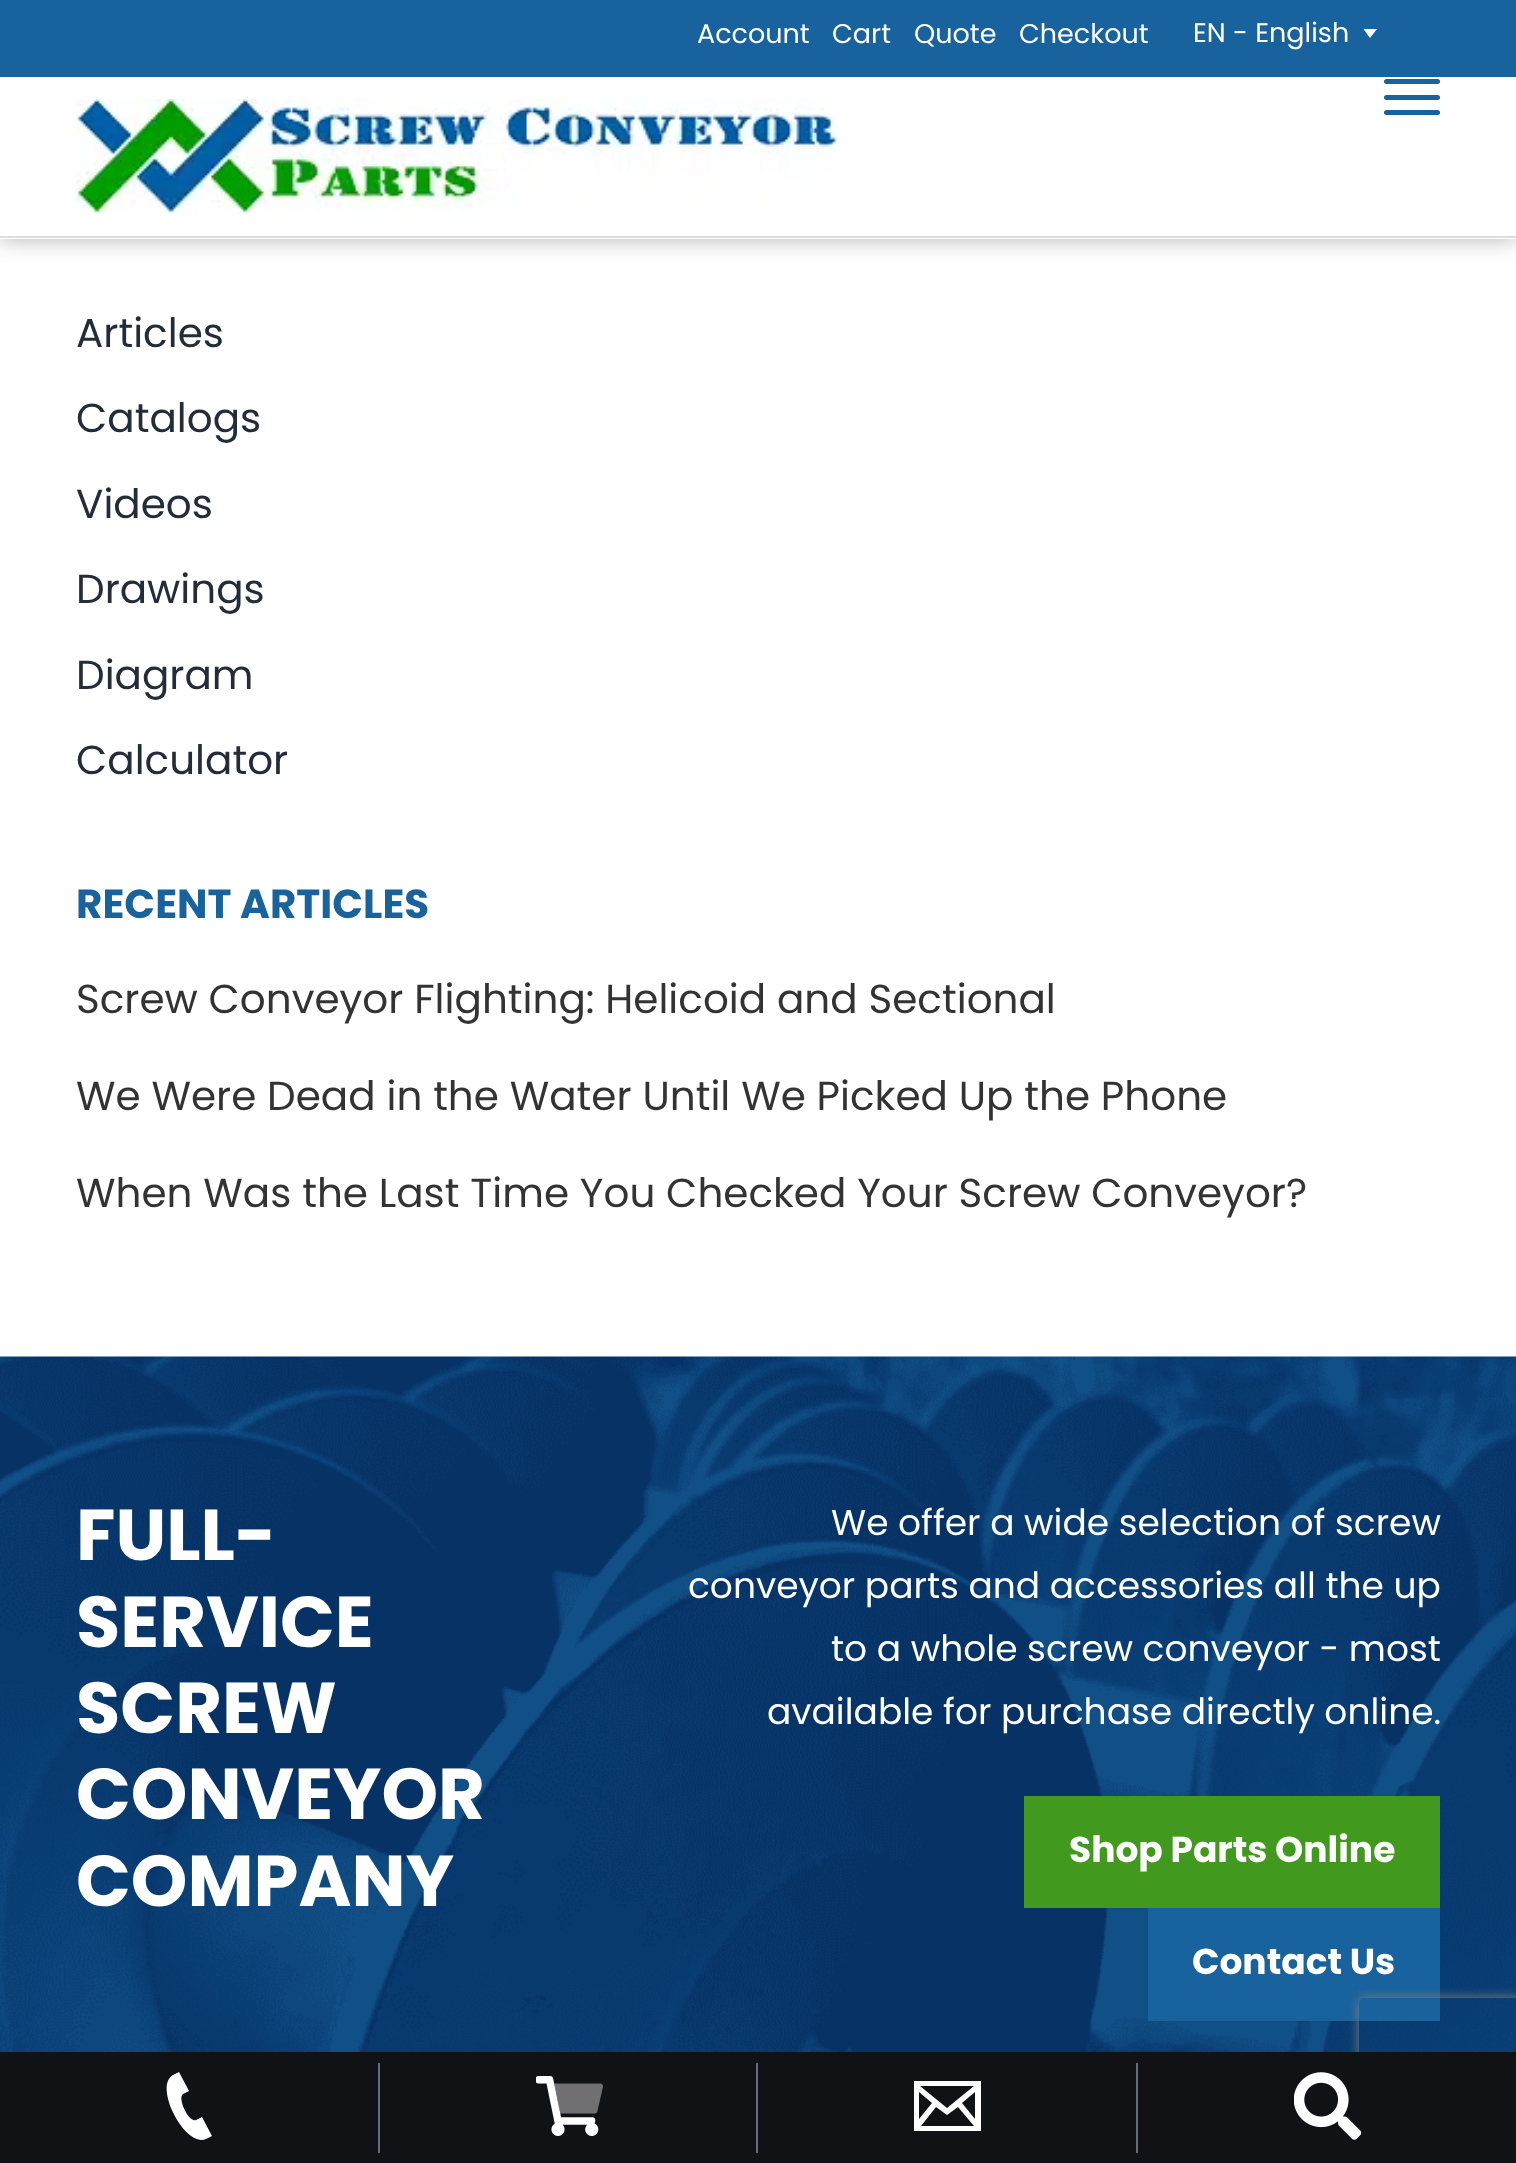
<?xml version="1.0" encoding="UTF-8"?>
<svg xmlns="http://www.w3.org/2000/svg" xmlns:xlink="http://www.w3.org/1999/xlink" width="1516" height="2163">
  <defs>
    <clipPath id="clip1"><path d="M 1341 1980 h 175 v 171 h -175 z m 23 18 h 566 c 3 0 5 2 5 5 v 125 c 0 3 -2 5 -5 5 h -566 c -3 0 -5 -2 -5 -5 v -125 c 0 -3 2 -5 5 -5 z" clip-rule="evenodd" /></clipPath>
  </defs>
  <rect width="100%" height="100%" fill="#ffffff" />
  <rect width="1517" height="239" fill="#000000" fill-opacity="0.3" filter="blur(11px)" />
  <rect y="77" width="1516" height="162" fill="#ffffff" />
  <rect y="236" width="1516" height="2" fill="#dddddd" />
  <rect width="1516" height="77" fill="#18629e" />
  <path d="M 1363.5 29 h 13.5 l -7 9 z" fill="#ffffff" />
  <image x="76" y="99" width="761" height="115" xlink:href="image1.png" />
  <rect x="1384" y="95" width="56" height="5" rx="2.5" fill="#18629e" />
  <rect x="1384" y="79" width="56" height="5" rx="2.5" fill="#18629e" />
  <rect x="1384" y="110" width="56" height="5" rx="2.5" fill="#18629e" />
  <image x="0" y="1356" width="1516" height="696" xlink:href="image2.png" />
  <rect x="1024" y="1796" width="416" height="112" fill="#41991e" />
  <rect x="1148" y="1908" width="292" height="113" fill="#18629e" />
  <g clip-path="url(#clip1)">
    <rect x="1359" y="1998" width="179" height="135" rx="5" fill="#808080" filter="blur(5.5px)" />
  </g>
  <rect y="2052" width="1516" height="111" fill="#111215" />
  <path d="M 212 2136 l -10 -19 l -6 3 c -7 3 -19 -22 -13 -26 l 6 -3 l -10 -19 l -6 3 c -20 11 12 73 33 64 z" fill="#ffffff" />
  <rect x="378" y="2063" width="2" height="90" fill="#636c77" />
  <image x="536" y="2076" width="67" height="60" xlink:href="image3.png" />
  <rect x="756" y="2063" width="2" height="90" fill="#636c77" />
  <path d="M 914 2081 v 50 h 67 v -50 z m 18 22 l -13 16 v -27 z m -12 -17 h 54 l -27 22 z m 16 21 l 11 8 l 11 -8 l 16 19 h -53 z m 26 -4 l 13 -11 v 27 z" fill="#ffffff" />
  <rect x="1136" y="2063" width="2" height="90" fill="#636c77" />
  <image x="1294" y="2072" width="67" height="68" xlink:href="image4.png" />
  <text x="697" y="43" style="font-family: Poppins; font-size: 27px; fill: #ffffff">Account</text>
  <text x="832" y="43" style="font-family: Poppins; font-size: 27px; fill: #ffffff">Cart</text>
  <text x="914" y="43" style="font-family: Poppins; font-size: 27px; fill: #ffffff">Quote</text>
  <text x="1019" y="43" style="font-family: Poppins; font-size: 27px; fill: #ffffff">Checkout</text>
  <text x="1193" y="42" style="font-family: Poppins; font-size: 27px; fill: #ffffff">EN - English</text>
  <text x="76" y="347" style="font-family: Poppins; font-size: 40.5px; fill: #232c39">Articles</text>
  <text x="76" y="432" style="font-family: Poppins; font-size: 40.5px; fill: #232c39">Catalogs</text>
  <text x="76" y="518" style="font-family: Poppins; font-size: 40.5px; fill: #232c39">Videos</text>
  <text x="76" y="603" style="font-family: Poppins; font-size: 40.5px; fill: #232c39">Drawings</text>
  <text x="76" y="689" style="font-family: Poppins; font-size: 40.5px; fill: #232c39">Diagram</text>
  <text x="76" y="774" style="font-family: Poppins; font-size: 40.5px; fill: #232c39">Calculator</text>
  <text x="76" y="918" style="font-family: Poppins; font-size: 40.5px; font-weight: bold; fill: #18629e">RECENT ARTICLES</text>
  <text x="76" y="1013" style="font-family: Poppins; font-size: 40.5px; fill: #333333">Screw Conveyor Flighting: Helicoid and Sectional</text>
  <text x="76" y="1110" style="font-family: Poppins; font-size: 40.5px; fill: #333333">We Were Dead in the Water Until We Picked Up the Phone</text>
  <text x="76" y="1207" style="font-family: Poppins; font-size: 40.5px; fill: #333333">When Was the Last Time You Checked Your Screw Conveyor?</text>
  <text x="76" y="1560" style="font-family: Poppins; font-size: 72px; font-weight: bold; fill: #ffffff">FULL-</text>
  <text x="76" y="1647" style="font-family: Poppins; font-size: 72px; font-weight: bold; fill: #ffffff">SERVICE</text>
  <text x="76" y="1733" style="font-family: Poppins; font-size: 72px; font-weight: bold; fill: #ffffff">SCREW</text>
  <text x="76" y="1819" style="font-family: Poppins; font-size: 72px; font-weight: bold; fill: #ffffff">CONVEYOR</text>
  <text x="76" y="1906" style="font-family: Poppins; font-size: 72px; font-weight: bold; fill: #ffffff">COMPANY</text>
  <text x="831" y="1535" style="font-family: Poppins; font-size: 36px; fill: #ffffff">We offer a wide selection of screw</text>
  <text x="688" y="1598" style="font-family: Poppins; font-size: 36px; fill: #ffffff">conveyor parts and accessories all the up</text>
  <text x="831" y="1661" style="font-family: Poppins; font-size: 36px; fill: #ffffff">to a whole screw conveyor - most</text>
  <text x="767" y="1724" style="font-family: Poppins; font-size: 36px; fill: #ffffff">available for purchase directly online.</text>
  <text x="1069" y="1862" style="font-family: Poppins; font-size: 36px; font-weight: bold; fill: #ffffff">Shop Parts Online</text>
  <text x="1192" y="1974" style="font-family: Poppins; font-size: 36px; font-weight: bold; fill: #ffffff">Contact Us</text>
</svg>
